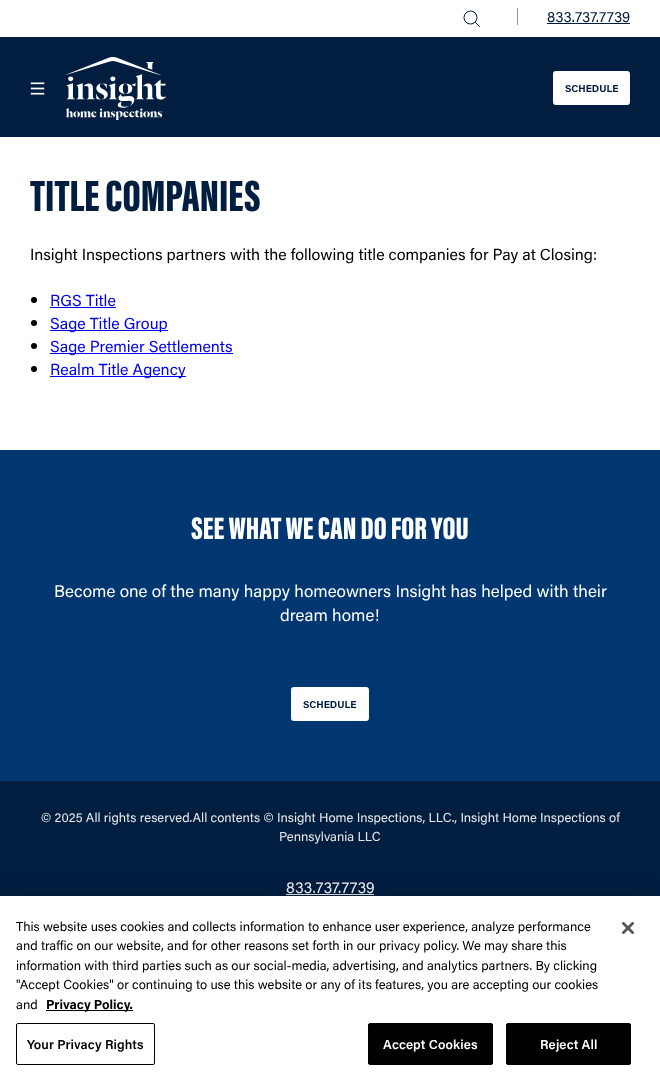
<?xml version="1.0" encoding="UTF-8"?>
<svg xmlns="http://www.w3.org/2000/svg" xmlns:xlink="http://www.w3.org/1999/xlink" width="660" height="1086">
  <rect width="100%" height="100%" fill="#003771" />
  <rect width="660" height="37" fill="#ffffff" />
  <circle cx="470.5" cy="17.5" r="6.5" fill="none" stroke="#011e41" />
  <path d="M 475.5 22.5 l 4 4" fill="none" stroke="#011e41" stroke-linecap="round" />
  <rect x="517" y="8" width="1" height="17" fill="#979797" />
  <rect x="547" y="23" width="83" height="1" fill="#011e41" />
  <rect y="37" width="660" height="100" fill="#011e41" />
  <image x="30" y="82" width="15" height="13" xlink:href="image1.png" />
  <image x="66" y="57" width="100" height="63" xlink:href="image2.png" />
  <rect x="554" y="72" width="75" height="32" rx="2" fill="#ffffff" stroke="#ffffff" stroke-width="2" />
  <rect y="137" width="660" height="313" fill="#ffffff" />
  <circle cx="34" cy="300" r="3" fill="#000000" />
  <rect x="50" y="307" width="66" height="1" fill="#0000ee" />
  <circle cx="34" cy="323" r="3" fill="#000000" />
  <rect x="50" y="330" width="118" height="1" fill="#0000ee" />
  <circle cx="34" cy="346" r="3" fill="#000000" />
  <rect x="50" y="353" width="183" height="1" fill="#0000ee" />
  <circle cx="34" cy="369" r="3" fill="#000000" />
  <rect x="50" y="376" width="136" height="1" fill="#0000ee" />
  <rect x="292" y="688" width="76" height="32" rx="2" fill="#ffffff" stroke="#ffffff" stroke-width="2" />
  <rect y="781" width="660" height="115" fill="#011e41" />
  <rect x="286" y="894" width="88" height="1" fill="#e6e7e8" />
  <rect y="896" width="660" height="190" fill="#000000" fill-opacity="0.2" filter="blur(9px)" />
  <rect y="896" width="660" height="190" fill="#ffffff" />
  <rect x="46" y="1010" width="87" height="1" fill="#000000" />
  <rect x="16.5" y="1023.5" width="138" height="41" rx="1.5" fill="none" stroke="#000000" />
  <rect x="368.5" y="1023.5" width="124" height="41" rx="1.5" fill="#000000" stroke="#000000" />
  <rect x="506.5" y="1023.5" width="124" height="41" rx="1.5" fill="#000000" stroke="#000000" />
  <image x="622" y="922" width="12" height="12" xlink:href="image3.png" />
  <text x="547" y="22" style="font-family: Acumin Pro; font-size: 15px; fill: #011e41">833.737.7739</text>
  <text x="565" y="92" style="font-family: Acumin Pro; font-size: 10px; font-weight: bold; fill: #011e41">SCHEDULE</text>
  <text x="30" y="211" style="font-family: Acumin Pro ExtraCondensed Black; font-size: 45px; font-weight: 900; fill: #011e41">TITLE COMPANIES</text>
  <text x="30" y="260" style="font-family: Acumin Pro; font-size: 16px; fill: #000000">Insight Inspections partners with the following title companies for Pay at Closing:</text>
  <text x="50" y="306" style="font-family: Acumin Pro; font-size: 16px; fill: #0000ee">RGS Title</text>
  <text x="50" y="329" style="font-family: Acumin Pro; font-size: 16px; fill: #0000ee">Sage Title Group</text>
  <text x="50" y="352" style="font-family: Acumin Pro; font-size: 16px; fill: #0000ee">Sage Premier Settlements</text>
  <text x="50" y="375" style="font-family: Acumin Pro; font-size: 16px; fill: #0000ee">Realm Title Agency</text>
  <text x="191" y="539" style="font-family: Acumin Pro ExtraCondensed Black; font-size: 32px; font-weight: 900; fill: #ffffff">SEE WHAT WE CAN DO FOR YOU</text>
  <text x="54" y="597" style="font-family: Acumin Pro; font-size: 17px; fill: #ffffff">Become one of the many happy homeowners Insight has helped with their</text>
  <text x="280" y="621" style="font-family: Acumin Pro; font-size: 17px; fill: #ffffff">dream home!</text>
  <text x="303" y="708" style="font-family: Acumin Pro; font-size: 10px; font-weight: bold; fill: #011e41">SCHEDULE</text>
  <text x="41" y="822" style="font-family: Acumin Pro; font-size: 13px; fill: #e6e7e8">© 2025 All rights reserved.All contents © Insight Home Inspections, LLC., Insight Home Inspections of</text>
  <text x="279" y="841" style="font-family: Acumin Pro; font-size: 13px; fill: #e6e7e8">Pennsylvania LLC</text>
  <text x="286" y="893" style="font-family: Acumin Pro; font-size: 16px; fill: #e6e7e8">833.737.7739</text>
  <text x="16" y="931" style="font-family: Acumin Pro; font-size: 13px; fill: #000000">This website uses cookies and collects information to enhance user experience, analyze performance</text>
  <text x="16" y="950" style="font-family: Acumin Pro; font-size: 13px; fill: #000000">and traffic on our website, and for other reasons set forth in our privacy policy. We may share this</text>
  <text x="16" y="970" style="font-family: Acumin Pro; font-size: 13px; fill: #000000">information with third parties such as our social-media, advertising, and analytics partners. By clicking</text>
  <text x="16" y="989" style="font-family: Acumin Pro; font-size: 13px; fill: #000000">"Accept Cookies" or continuing to use this website or any of its features, you are accepting our cookies</text>
  <text x="16" y="1009" style="font-family: Acumin Pro; font-size: 13px; fill: #000000">and</text>
  <text x="46" y="1009" style="font-family: Acumin Pro; font-size: 13px; font-weight: bold; fill: #000000">Privacy Policy.</text>
  <text x="27" y="1049" style="font-family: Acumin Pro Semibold; font-size: 13px; font-weight: 600; letter-spacing: 0.1px; fill: #000000">Your Privacy Rights</text>
  <text x="383" y="1049" style="font-family: Acumin Pro Semibold; font-size: 13px; font-weight: 600; letter-spacing: 0.1px; fill: #ffffff">Accept Cookies</text>
  <text x="540" y="1049" style="font-family: Acumin Pro Semibold; font-size: 13px; font-weight: 600; letter-spacing: 0.1px; fill: #ffffff">Reject All</text>
</svg>
